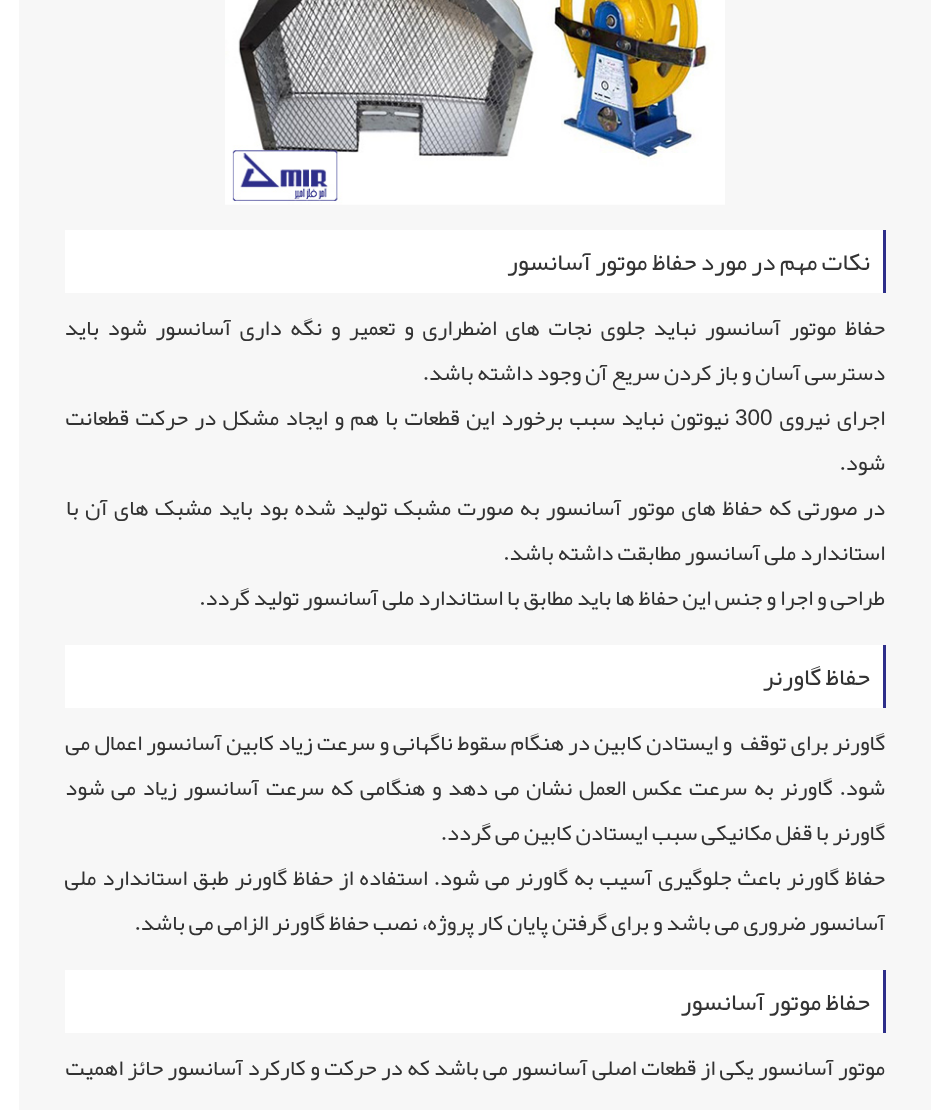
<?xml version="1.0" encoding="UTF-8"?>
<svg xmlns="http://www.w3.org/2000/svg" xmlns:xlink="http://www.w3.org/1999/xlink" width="950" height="1110">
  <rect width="100%" height="100%" fill="#ffffff" />
  <rect x="19" width="912" height="1110" fill="#f7f7f7" />
  <image x="225" y="0" width="500" height="205" xlink:href="image1.png" />
  <rect x="65" y="230" width="818" height="63" fill="#ffffff" />
  <rect x="883" y="230" width="3" height="63" fill="#2e2f8a" />
  <rect x="65" y="645" width="818" height="63" fill="#ffffff" />
  <rect x="883" y="645" width="3" height="63" fill="#2e2f8a" />
  <rect x="65" y="970" width="818" height="63" fill="#ffffff" />
  <rect x="883" y="970" width="3" height="63" fill="#2e2f8a" />
  <text x="870" y="270" style="font-family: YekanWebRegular; font-size: 25px; direction: rtl; fill: #333333">نکات مهم در مورد حفاظ موتور آسانسور</text>
  <text x="885" y="335" word-spacing="4.75" style="font-family: YekanWebRegular; font-size: 22.5px; direction: rtl; fill: #333333">حفاظ موتور آسانسور نباید جلوی نجات های اضطراری و تعمیر و نگه داری آسانسور شود باید</text>
  <text x="885" y="380" style="font-family: YekanWebRegular; font-size: 22.5px; direction: rtl; fill: #333333">دسترسی آسان و باز کردن سریع آن وجود داشته باشد.</text>
  <text x="885" y="425" word-spacing="2.6" style="font-family: YekanWebRegular; font-size: 22.5px; direction: rtl; fill: #333333">اجرای نیروی</text>
  <text x="735" y="425" style="font-family: Liberation Sans; font-size: 22.5px; fill: #333333">300</text>
  <text x="729" y="425" word-spacing="2.6" style="font-family: YekanWebRegular; font-size: 22.5px; direction: rtl; fill: #333333">نیوتون نباید سبب برخورد این قطعات با هم و ایجاد مشکل در حرکت قطعانت</text>
  <text x="885" y="470" style="font-family: YekanWebRegular; font-size: 22.5px; direction: rtl; fill: #333333">شود.</text>
  <text x="885" y="515" word-spacing="2.5" style="font-family: YekanWebRegular; font-size: 22.5px; direction: rtl; fill: #333333">در صورتی که حفاظ های موتور آسانسور به صورت مشبک تولید شده بود باید مشبک های آن با</text>
  <text x="885" y="560" style="font-family: YekanWebRegular; font-size: 22.5px; direction: rtl; fill: #333333">استاندارد ملی آسانسور مطابقت داشته باشد.</text>
  <text x="885" y="605" style="font-family: YekanWebRegular; font-size: 22.5px; direction: rtl; fill: #333333">طراحی و اجرا و جنس این حفاظ ها باید مطابق با استاندارد ملی آسانسور تولید گردد.</text>
  <text x="870" y="685" style="font-family: YekanWebRegular; font-size: 25px; direction: rtl; fill: #333333">حفاظ گاورنر</text>
  <text x="885" y="750" word-spacing="0.3" style="font-family: YekanWebRegular; font-size: 22.5px; direction: rtl; fill: #333333" xml:space="preserve">گاورنر برای توقف  و ایستادن کابین در هنگام سقوط ناگهانی و سرعت زیاد کابین آسانسور اعمال می</text>
  <text x="885" y="795" word-spacing="2.75" style="font-family: YekanWebRegular; font-size: 22.5px; direction: rtl; fill: #333333">شود. گاورنر به سرعت عکس العمل نشان می دهد و هنگامی که سرعت آسانسور زیاد می شود</text>
  <text x="885" y="840" style="font-family: YekanWebRegular; font-size: 22.5px; direction: rtl; fill: #333333">گاورنر با قفل مکانیکی سبب ایستادن کابین می گردد.</text>
  <text x="885" y="885" word-spacing="1.9" style="font-family: YekanWebRegular; font-size: 22.5px; direction: rtl; fill: #333333">حفاظ گاورنر باعث جلوگیری آسیب به گاورنر می شود. استفاده از حفاظ گاورنر طبق استاندارد ملی</text>
  <text x="885" y="930" style="font-family: YekanWebRegular; font-size: 22.5px; direction: rtl; fill: #333333">آسانسور ضروری می باشد و برای گرفتن پایان کار پروژه، نصب حفاظ گاورنر الزامی می باشد.</text>
  <text x="870" y="1010" style="font-family: YekanWebRegular; font-size: 25px; direction: rtl; fill: #333333">حفاظ موتور آسانسور</text>
  <text x="885" y="1075" word-spacing="0.5" style="font-family: YekanWebRegular; font-size: 22.5px; direction: rtl; fill: #333333">موتور آسانسور یکی از قطعات اصلی آسانسور می باشد که در حرکت و کارکرد آسانسور حائز اهمیت</text>
</svg>
